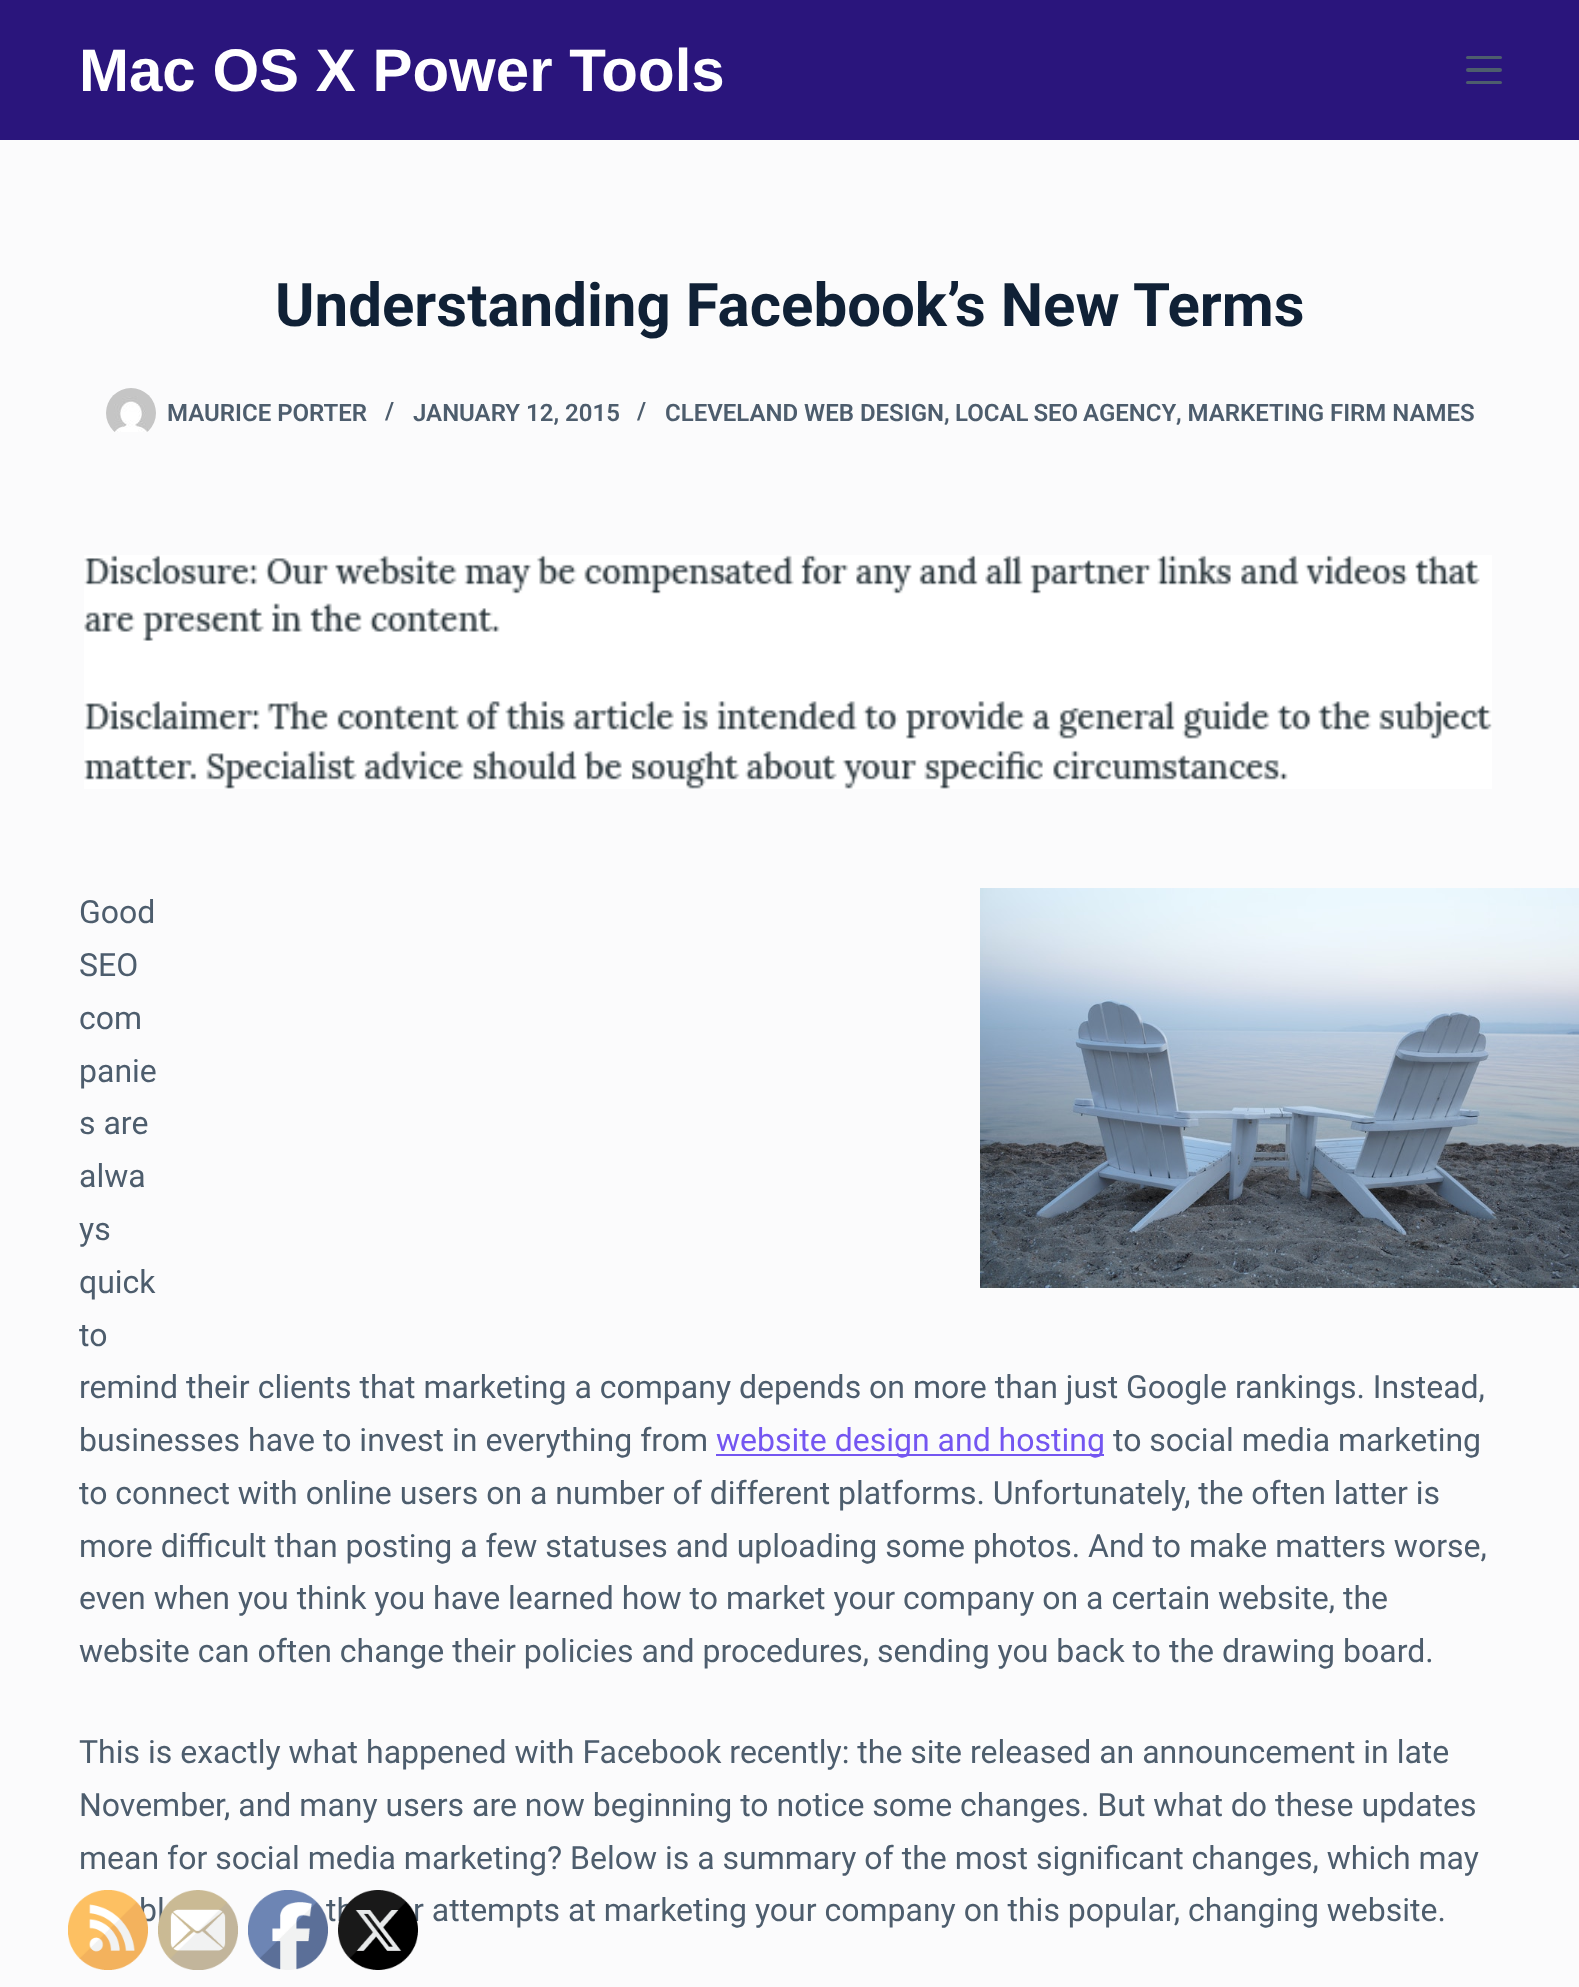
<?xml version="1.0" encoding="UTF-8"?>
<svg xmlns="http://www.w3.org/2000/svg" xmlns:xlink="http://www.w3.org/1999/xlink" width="1579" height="1987">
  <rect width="100%" height="100%" fill="#fbfbfc" />
  <rect width="1579" height="140" fill="#2a157c" />
  <rect x="1466" y="56" width="36" height="3" rx="1.5" fill="#4d5d6d" />
  <rect x="1466" y="68" width="36" height="4" rx="2" fill="#4d5d6d" />
  <rect x="1466" y="81" width="36" height="3" rx="1.5" fill="#4d5d6d" />
  <image x="106" y="388" width="50" height="44" xlink:href="image1.png" />
  <image x="84" y="555" width="1408" height="234" xlink:href="image2.png" />
  <image x="980" y="888" width="599" height="400" xlink:href="image3.png" />
  <rect x="716" y="1454" width="388" height="2" fill="#7456f1" />
  <text x="79" y="91" style="font-family: Liberation Sans; font-size: 60px; font-weight: bold; fill: #ffffff">Mac OS X Power Tools</text>
  <text x="275" y="326" style="font-family: Roboto; font-size: 60px; font-weight: bold; fill: #102136">Understanding Facebook’s New Terms</text>
  <text x="167" y="421" style="font-family: Roboto; font-size: 24px; font-weight: 600; fill: #4d5d6d">MAURICE PORTER</text>
  <text x="385" y="419" style="font-family: Roboto; font-size: 24px; font-weight: 600; fill: #4d5d6d">/</text>
  <text x="413" y="421" style="font-family: Roboto; font-size: 24px; font-weight: 600; fill: #4d5d6d">JANUARY 12, 2015</text>
  <text x="637" y="419" style="font-family: Roboto; font-size: 24px; font-weight: 600; fill: #4d5d6d">/</text>
  <text x="665" y="421" style="font-family: Roboto; font-size: 24px; font-weight: 600; fill: #4d5d6d">CLEVELAND WEB DESIGN,</text>
  <text x="955" y="421" word-spacing="-1" style="font-family: Roboto; font-size: 24px; font-weight: 600; fill: #4d5d6d">LOCAL SEO AGENCY</text>
  <text x="1176" y="421" style="font-family: Roboto; font-size: 24px; font-weight: 600; fill: #4d5d6d">, MARKETING FIRM NAMES</text>
  <text x="79" y="923" style="font-family: Roboto; font-size: 32px; fill: #4d5d6d">Good</text>
  <text x="79" y="976" style="font-family: Roboto; font-size: 32px; fill: #4d5d6d">SEO</text>
  <text x="79" y="1029" style="font-family: Roboto; font-size: 32px; fill: #4d5d6d">com</text>
  <text x="79" y="1082" style="font-family: Roboto; font-size: 32px; fill: #4d5d6d">panie</text>
  <text x="79" y="1134" style="font-family: Roboto; font-size: 32px; fill: #4d5d6d">s are</text>
  <text x="79" y="1187" style="font-family: Roboto; font-size: 32px; fill: #4d5d6d">alwa</text>
  <text x="79" y="1240" style="font-family: Roboto; font-size: 32px; fill: #4d5d6d">ys</text>
  <text x="79" y="1293" style="font-family: Roboto; font-size: 32px; fill: #4d5d6d">quick</text>
  <text x="79" y="1346" style="font-family: Roboto; font-size: 32px; fill: #4d5d6d">to</text>
  <text x="79" y="1398" style="font-family: Roboto; font-size: 32px; fill: #4d5d6d">remind their clients that marketing a company depends on more than just Google rankings. Instead,</text>
  <text x="79" y="1451" style="font-family: Roboto; font-size: 32px; fill: #4d5d6d">businesses have to invest in everything from</text>
  <text x="716" y="1451" style="font-family: Roboto; font-size: 32px; fill: #7456f1">website design and hosting</text>
  <text x="1113" y="1451" style="font-family: Roboto; font-size: 32px; fill: #4d5d6d">to social media marketing</text>
  <text x="79" y="1504" style="font-family: Roboto; font-size: 32px; fill: #4d5d6d">to connect with online users on a number of different platforms. Unfortunately, the often latter is</text>
  <text x="79" y="1557" style="font-family: Roboto; font-size: 32px; fill: #4d5d6d">more difficult than posting a few statuses and uploading some photos. And to make matters worse,</text>
  <text x="79" y="1609" style="font-family: Roboto; font-size: 32px; fill: #4d5d6d">even when you think you have learned how to market your company on a certain website, the</text>
  <text x="79" y="1662" style="font-family: Roboto; font-size: 32px; fill: #4d5d6d">website can often change their policies and procedures, sending you back to the drawing board.</text>
  <text x="79" y="1763" style="font-family: Roboto; font-size: 32px; fill: #4d5d6d">This is exactly what happened with Facebook recently: the site released an announcement in late</text>
  <text x="79" y="1816" style="font-family: Roboto; font-size: 32px; fill: #4d5d6d">November, and many users are now beginning to notice some changes. But what do these updates</text>
  <text x="79" y="1869" style="font-family: Roboto; font-size: 32px; fill: #4d5d6d">mean for social media marketing? Below is a summary of the most significant changes, which may</text>
  <text x="139" y="1921" style="font-family: Roboto; font-size: 32px; fill: #4d5d6d">bl</text>
  <text x="326" y="1921" style="font-family: Roboto; font-size: 32px; fill: #4d5d6d">th</text>
  <text x="413" y="1921" style="font-family: Roboto; font-size: 32px; fill: #4d5d6d">r attempts at marketing your company on this popular, changing website.</text>
  <image x="68" y="1890" width="80" height="80" xlink:href="image4.png" />
  <image x="158" y="1890" width="80" height="80" xlink:href="image5.png" />
  <image x="248" y="1890" width="80" height="80" xlink:href="image6.png" />
  <image x="338" y="1890" width="80" height="80" xlink:href="image7.png" />
</svg>
